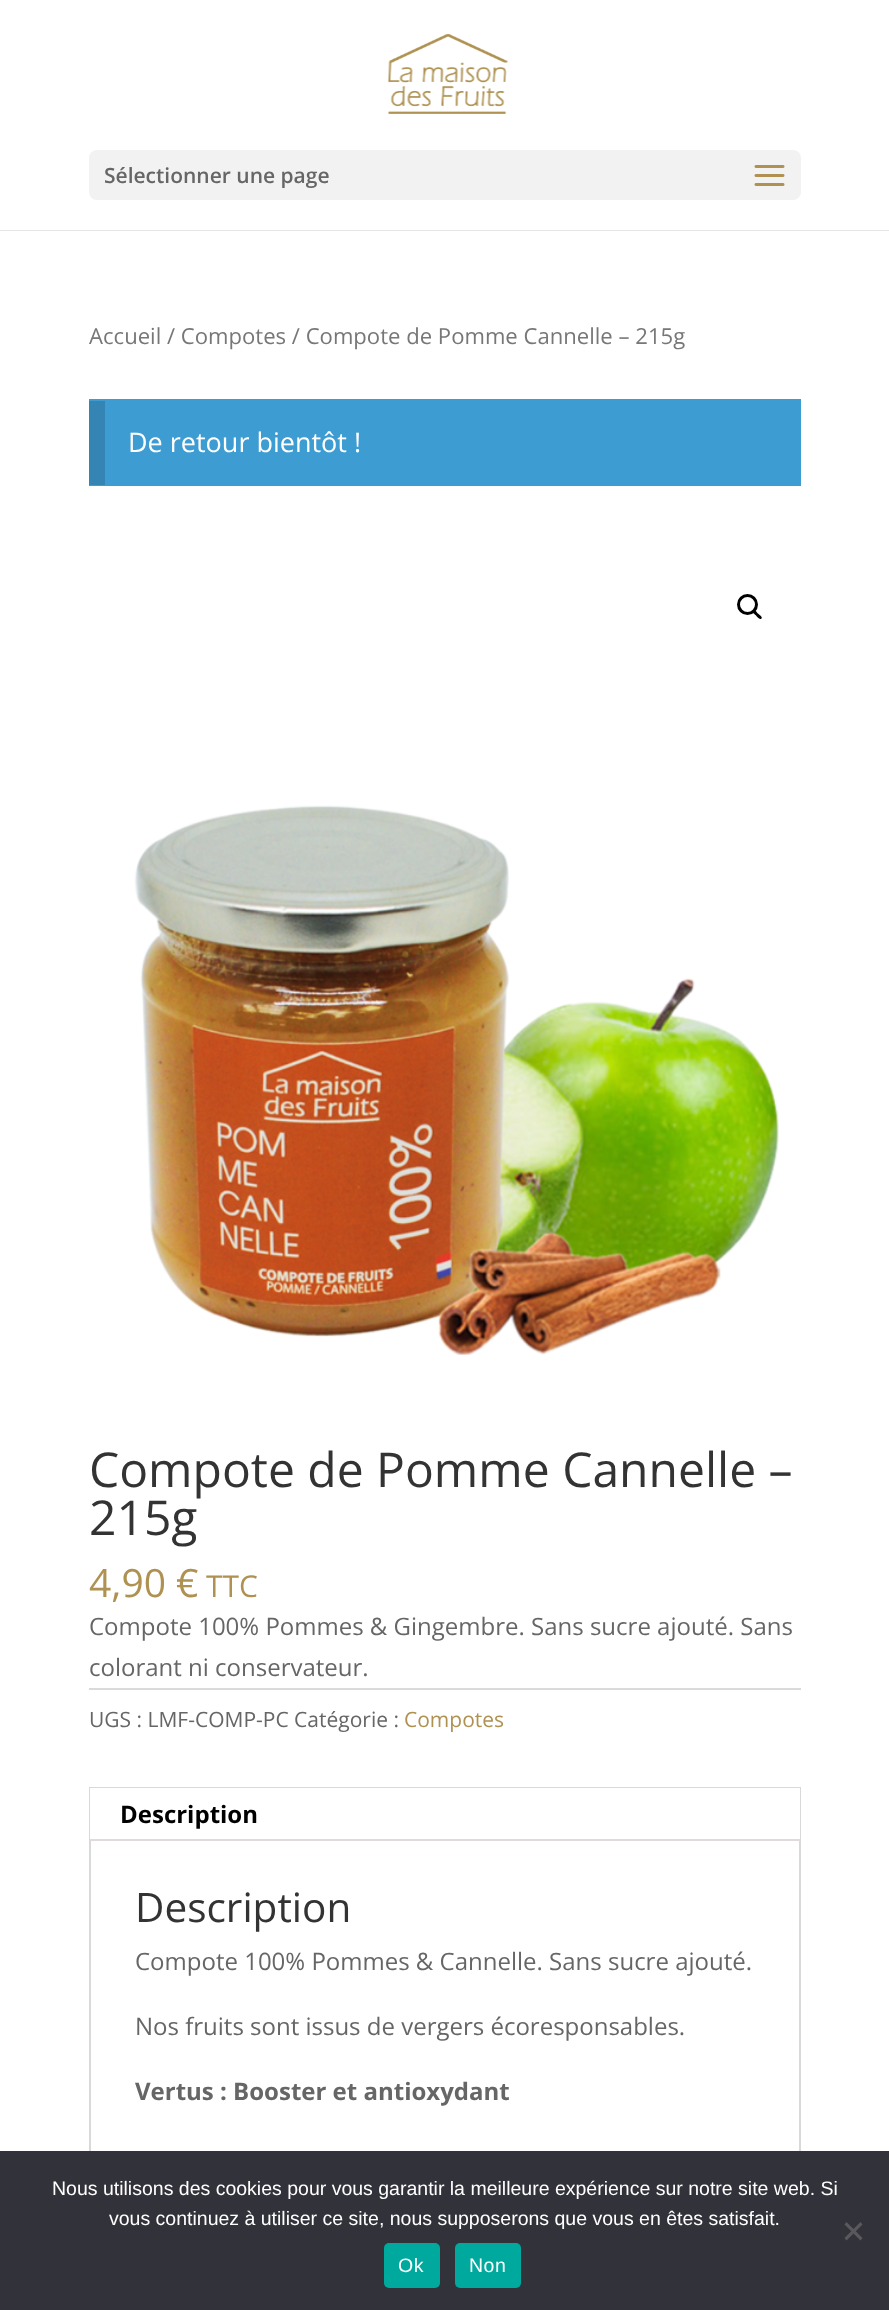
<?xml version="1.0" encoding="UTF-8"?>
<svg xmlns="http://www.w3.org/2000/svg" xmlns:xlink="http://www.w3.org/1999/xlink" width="889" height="2310">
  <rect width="100%" height="100%" fill="#ffffff" />
  <path d="M 0 230 v 1 h 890 v -229 v 228 z" fill="#e6e6e6" />
  <image x="387" y="34" width="121" height="80" xlink:href="image1.png" />
  <rect x="89" y="150" width="712" height="50" rx="8" fill="#f2f2f2" />
  <image x="754" y="165" width="31" height="21" xlink:href="image2.png" />
  <rect x="89" y="399" width="712" height="87" fill="#3d9cd2" />
  <rect x="89" y="401" width="16" height="84" fill="#3485b3" />
  <circle cx="747.5" cy="604.5" r="9" fill="none" stroke="#000000" stroke-width="3" />
  <path d="M 753 610 c 1.5 -1.5 4 2.5 5 3.5 c 1 1 5 3.5 3.5 5 c -2 2 -4.5 -2 -5.5 -3 c -1 -1 -5 -3.5 -3 -5.5 z" fill="#000000" />
  <image x="134" y="805" width="645" height="550" xlink:href="image3.png" />
  <rect x="89" y="1688" width="712" height="2" fill="#dadada" />
  <rect x="90" y="1788" width="710" height="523" fill="none" stroke="#d9d9d9" stroke-width="2" />
  <rect x="90" y="1788" width="710" height="51" fill="#ffffff" />
  <rect x="90" y="1839" width="710" height="2" fill="#e0dadf" />
  <rect y="2151" width="889" height="159" fill="#32323a" />
  <path d="M 860.5 2222 l 2 2.5 l -16 16 l -2 -2.5 z" fill="#59595d" />
  <path d="M 844.5 2224.5 l 2 -2.5 l 16 16 l -2 2.5 z" fill="#59595d" />
  <rect x="384" y="2243" width="56" height="45" rx="5" fill="#00a99d" />
  <rect x="455" y="2243" width="66" height="45" rx="5" fill="#00a99d" />
  <text x="104" y="183" style="font-family: Open Sans; font-size: 21px; font-weight: 600; fill: #666666">Sélectionner une page</text>
  <text x="89" y="344" style="font-family: Open Sans; font-size: 22.1px; fill: #777777">Accueil / Compotes / Compote de Pomme Cannelle – 215g</text>
  <text x="128" y="452" style="font-family: Open Sans; font-size: 27px; fill: #ffffff">De retour bientôt !</text>
  <text x="89" y="1487" style="font-family: Open Sans; font-size: 48px; fill: #333333">Compote de Pomme Cannelle –</text>
  <text x="89" y="1535" style="font-family: Open Sans; font-size: 48px; fill: #333333">215g</text>
  <text x="89" y="1597" style="font-family: Open Sans; font-size: 39px; fill: #af9252">4,90 €</text>
  <text x="206" y="1597" style="font-family: Open Sans; font-size: 30px; fill: #af9252">TTC</text>
  <text x="89" y="1635" style="font-family: Open Sans; font-size: 24px; fill: #666666">Compote 100% Pommes &amp; Gingembre. Sans sucre ajouté. Sans</text>
  <text x="89" y="1676" style="font-family: Open Sans; font-size: 24px; fill: #666666">colorant ni conservateur.</text>
  <text x="89" y="1727" style="font-family: Open Sans; font-size: 21px; fill: #666666">UGS : LMF-COMP-PC Catégorie :</text>
  <text x="404" y="1727" style="font-family: Open Sans; font-size: 21px; fill: #af9252">Compotes</text>
  <text x="120" y="1823" style="font-family: Open Sans; font-size: 24px; font-weight: bold; fill: #000000">Description</text>
  <text x="135" y="1922" style="font-family: Open Sans; font-size: 40.5px; fill: #333333">Description</text>
  <text x="135" y="1970" style="font-family: Open Sans; font-size: 24px; fill: #666666">Compote 100% Pommes &amp; Cannelle. Sans sucre ajouté.</text>
  <text x="135" y="2035" style="font-family: Open Sans; font-size: 24px; fill: #666666">Nos fruits sont issus de vergers écoresponsables.</text>
  <text x="135" y="2100" style="font-family: Open Sans; font-size: 24px; font-weight: bold; fill: #666666">Vertus : Booster et antioxydant</text>
  <text x="52" y="2195" style="font-family: Liberation Sans; font-size: 19.5px; fill: #ffffff">Nous utilisons des cookies pour vous garantir la meilleure expérience sur notre site web. Si</text>
  <text x="109" y="2225" style="font-family: Liberation Sans; font-size: 19.5px; fill: #ffffff">vous continuez à utiliser ce site, nous supposerons que vous en êtes satisfait.</text>
  <text x="398" y="2272" style="font-family: Liberation Sans; font-size: 19.5px; letter-spacing: 0.5px; fill: #ffffff">Ok</text>
  <text x="469" y="2272" style="font-family: Liberation Sans; font-size: 19.5px; letter-spacing: 0.5px; fill: #ffffff">Non</text>
</svg>
